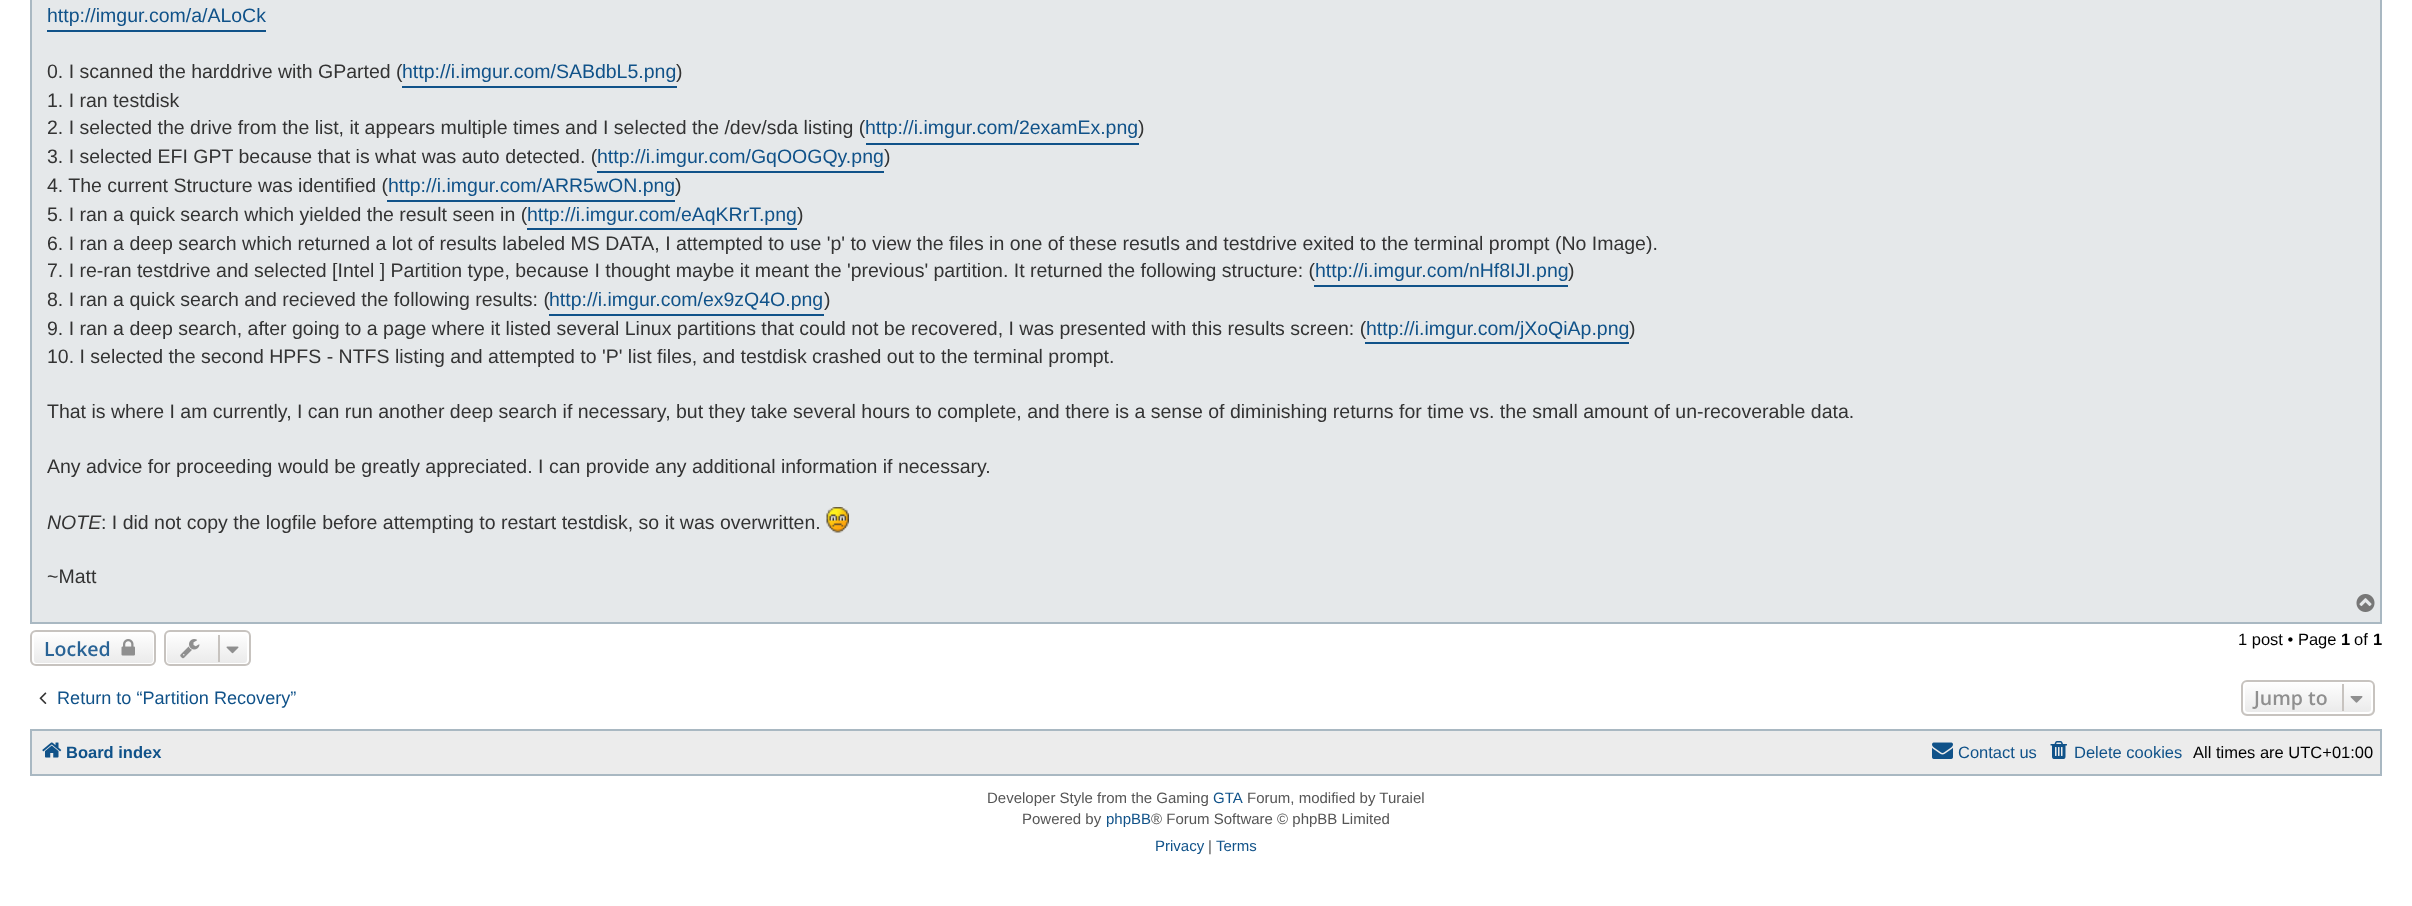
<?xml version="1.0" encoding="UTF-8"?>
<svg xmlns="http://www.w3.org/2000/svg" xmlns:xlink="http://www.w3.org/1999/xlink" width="2412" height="906">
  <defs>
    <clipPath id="clip1"><rect x="30" y="630" width="126" height="36" rx="6" /></clipPath>
    <linearGradient id="g1" gradientUnits="userSpaceOnUse" x1="93" y1="632" x2="93" y2="665"><stop offset="0" stop-color="#ffffff" /><stop offset="1" stop-color="#e9e9e9" /></linearGradient>
    <clipPath id="clip2"><rect x="164" y="630" width="87" height="36" rx="6" /></clipPath>
    <linearGradient id="g2" gradientUnits="userSpaceOnUse" x1="207" y1="632" x2="207" y2="665"><stop offset="0" stop-color="#ffffff" /><stop offset="1" stop-color="#e9e9e9" /></linearGradient>
    <clipPath id="clip3"><rect x="2241" y="680" width="134" height="36" rx="6" /></clipPath>
    <linearGradient id="g3" gradientUnits="userSpaceOnUse" x1="2308" y1="681" x2="2308" y2="714"><stop offset="0" stop-color="#ffffff" /><stop offset="1" stop-color="#e9e9e9" /></linearGradient>
  </defs>
  <rect width="100%" height="100%" fill="#ffffff" />
  <rect x="31" y="-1" width="2350" height="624" fill="#e5e8ea" stroke="#a9b8c2" stroke-width="2" />
  <rect x="47" y="30" width="219" height="2" fill="#105289" />
  <rect x="402" y="86" width="275" height="2" fill="#105289" />
  <rect x="866" y="143" width="273" height="2" fill="#105289" />
  <rect x="597" y="171" width="287" height="2" fill="#105289" />
  <rect x="387" y="200" width="288" height="2" fill="#105289" />
  <rect x="527" y="228" width="270" height="2" fill="#105289" />
  <rect x="1314" y="285" width="254" height="2" fill="#105289" />
  <rect x="549" y="314" width="275" height="2" fill="#105289" />
  <rect x="1365" y="342" width="264" height="2" fill="#105289" />
  <image x="826" y="507" width="23" height="26" xlink:href="image1.png" />
  <image x="2356" y="594" width="19" height="18" xlink:href="image2.png" />
  <g clip-path="url(#clip1)">
    <rect x="30" y="632" width="126" height="33" fill="url(#g1)" />
  </g>
  <rect x="33" y="633" width="121" height="31" rx="4" fill="none" stroke="#ffffff" stroke-width="2" />
  <rect x="31" y="631" width="124" height="34" rx="5" fill="none" stroke="#c7c3bf" stroke-width="2" />
  <image x="121" y="639" width="14" height="17" xlink:href="image3.png" />
  <g clip-path="url(#clip2)">
    <rect x="164" y="632" width="87" height="33" fill="url(#g2)" />
  </g>
  <rect x="166" y="633" width="82" height="31" rx="4" fill="none" stroke="#ffffff" stroke-width="2" />
  <rect x="165" y="631" width="85" height="34" rx="5" fill="none" stroke="#c7c3bf" stroke-width="2" />
  <image x="180" y="639" width="20" height="20" xlink:href="image4.png" />
  <rect x="218" y="635" width="2" height="27" fill="#c7c3bf" />
  <image x="226" y="646" width="13" height="8" xlink:href="image5.png" />
  <image x="39" y="692" width="8" height="12" xlink:href="image6.png" />
  <g clip-path="url(#clip3)">
    <rect x="2241" y="681" width="134" height="33" fill="url(#g3)" />
  </g>
  <rect x="2244" y="682" width="128" height="31" rx="4" fill="none" stroke="#ffffff" stroke-width="2" />
  <rect x="2242" y="681" width="132" height="34" rx="5" fill="none" stroke="#c7c3bf" stroke-width="2" />
  <rect x="2342" y="684" width="2" height="27" fill="#c7c3bf" />
  <image x="2350" y="696" width="13" height="7" xlink:href="image7.png" />
  <rect x="31" y="730" width="2350" height="45" fill="#ececec" stroke="#a9b8c2" stroke-width="2" />
  <image x="42" y="742" width="20" height="16" xlink:href="image8.png" />
  <image x="1932" y="742" width="21" height="17" xlink:href="image9.png" />
  <image x="2050" y="741" width="17" height="18" xlink:href="image10.png" />
  <text x="47" y="22" style="font-family: Liberation Sans; font-size: 19.5px; fill: #105289">http://imgur.com/a/ALoCk</text>
  <text x="47" y="78" style="font-family: Liberation Sans; font-size: 19.5px; fill: #333333">0. I scanned the harddrive with GParted (</text>
  <text x="402" y="78" style="font-family: Liberation Sans; font-size: 19.5px; fill: #105289">http://i.imgur.com/SABdbL5.png</text>
  <text x="676" y="78" style="font-family: Liberation Sans; font-size: 19.5px; fill: #333333">)</text>
  <text x="47" y="107" style="font-family: Liberation Sans; font-size: 19.5px; fill: #333333">1. I ran testdisk</text>
  <text x="47" y="134" style="font-family: Liberation Sans; font-size: 19.5px; fill: #333333">2. I selected the drive from the list, it appears multiple times and I selected the /dev/sda listing (</text>
  <text x="865" y="134" style="font-family: Liberation Sans; font-size: 19.5px; fill: #105289">http://i.imgur.com/2examEx.png</text>
  <text x="1138" y="134" style="font-family: Liberation Sans; font-size: 19.5px; fill: #333333">)</text>
  <text x="47" y="163" style="font-family: Liberation Sans; font-size: 19.5px; fill: #333333">3. I selected EFI GPT because that is what was auto detected. (</text>
  <text x="597" y="163" style="font-family: Liberation Sans; font-size: 19.5px; fill: #105289">http://i.imgur.com/GqOOGQy.png</text>
  <text x="884" y="163" style="font-family: Liberation Sans; font-size: 19.5px; fill: #333333">)</text>
  <text x="47" y="192" style="font-family: Liberation Sans; font-size: 19.5px; fill: #333333">4. The current Structure was identified (</text>
  <text x="388" y="192" style="font-family: Liberation Sans; font-size: 19.5px; fill: #105289">http://i.imgur.com/ARR5wON.png</text>
  <text x="675" y="192" style="font-family: Liberation Sans; font-size: 19.5px; fill: #333333">)</text>
  <text x="47" y="221" style="font-family: Liberation Sans; font-size: 19.5px; fill: #333333">5. I ran a quick search which yielded the result seen in (</text>
  <text x="527" y="221" style="font-family: Liberation Sans; font-size: 19.5px; fill: #105289">http://i.imgur.com/eAqKRrT.png</text>
  <text x="797" y="221" style="font-family: Liberation Sans; font-size: 19.5px; fill: #333333">)</text>
  <text x="47" y="250" style="font-family: Liberation Sans; font-size: 19.5px; fill: #333333">6. I ran a deep search which returned a lot of results labeled MS DATA, I attempted to use 'p' to view the files in one of these resutls and testdrive exited to the terminal prompt (No Image).</text>
  <text x="47" y="277" style="font-family: Liberation Sans; font-size: 19.5px; fill: #333333">7. I re-ran testdrive and selected [Intel ] Partition type, because I thought maybe it meant the 'previous' partition. It returned the following structure: (</text>
  <text x="1315" y="277" style="font-family: Liberation Sans; font-size: 19.5px; fill: #105289">http://i.imgur.com/nHf8IJI.png</text>
  <text x="1568" y="277" style="font-family: Liberation Sans; font-size: 19.5px; fill: #333333">)</text>
  <text x="47" y="306" style="font-family: Liberation Sans; font-size: 19.5px; fill: #333333">8. I ran a quick search and recieved the following results: (</text>
  <text x="549" y="306" style="font-family: Liberation Sans; font-size: 19.5px; fill: #105289">http://i.imgur.com/ex9zQ4O.png</text>
  <text x="824" y="306" style="font-family: Liberation Sans; font-size: 19.5px; fill: #333333">)</text>
  <text x="47" y="335" style="font-family: Liberation Sans; font-size: 19.5px; fill: #333333">9. I ran a deep search, after going to a page where it listed several Linux partitions that could not be recovered, I was presented with this results screen: (</text>
  <text x="1366" y="335" style="font-family: Liberation Sans; font-size: 19.5px; fill: #105289">http://i.imgur.com/jXoQiAp.png</text>
  <text x="1629" y="335" style="font-family: Liberation Sans; font-size: 19.5px; fill: #333333">)</text>
  <text x="47" y="363" style="font-family: Liberation Sans; font-size: 19.5px; fill: #333333">10. I selected the second HPFS - NTFS listing and attempted to 'P' list files, and testdisk crashed out to the terminal prompt.</text>
  <text x="47" y="418" style="font-family: Liberation Sans; font-size: 19.5px; fill: #333333">That is where I am currently, I can run another deep search if necessary, but they take several hours to complete, and there is a sense of diminishing returns for time vs. the small amount of un-recoverable data.</text>
  <text x="47" y="473" style="font-family: Liberation Sans; font-size: 19.5px; fill: #333333">Any advice for proceeding would be greatly appreciated. I can provide any additional information if necessary.</text>
  <text x="47" y="529" style="font-family: Liberation Sans; font-size: 19.5px; font-style: italic; fill: #333333">NOTE</text>
  <text x="101" y="529" style="font-family: Liberation Sans; font-size: 19.5px; fill: #333333">: I did not copy the logfile before attempting to restart testdisk, so it was overwritten.</text>
  <text x="47" y="583" style="font-family: Liberation Sans; font-size: 19.5px; fill: #333333">~Matt</text>
  <text x="44" y="656" style="font-family: Open Sans; font-size: 19.5px; font-weight: 600; fill: #2a6496">Locked</text>
  <text x="2238" y="645" style="font-family: Liberation Sans; font-size: 16.5px; fill: #000000">1 post • Page</text>
  <text x="2341" y="645" style="font-family: Liberation Sans; font-size: 16.5px; font-weight: bold; fill: #000000">1</text>
  <text x="2354" y="645" style="font-family: Liberation Sans; font-size: 16.5px; fill: #000000">of</text>
  <text x="2373" y="645" style="font-family: Liberation Sans; font-size: 16.5px; font-weight: bold; fill: #000000">1</text>
  <text x="57" y="704" style="font-family: Liberation Sans; font-size: 18.1px; fill: #105289">Return to “Partition Recovery”</text>
  <text x="2254" y="705" style="font-family: Open Sans; font-size: 19.5px; font-weight: 600; fill: #8f8f8f">Jump to</text>
  <text x="66" y="758" style="font-family: Liberation Sans; font-size: 16.5px; font-weight: bold; fill: #105289">Board index</text>
  <text x="1958" y="758" style="font-family: Liberation Sans; font-size: 16.5px; fill: #105289">Contact us</text>
  <text x="2074" y="758" style="font-family: Liberation Sans; font-size: 16.5px; fill: #105289">Delete cookies</text>
  <text x="2193" y="758" style="font-family: Liberation Sans; font-size: 16.5px; fill: #000000">All times are UTC+01:00</text>
  <text x="987" y="803" style="font-family: Liberation Sans; font-size: 15px; fill: #555555">Developer Style from the Gaming</text>
  <text x="1213" y="803" style="font-family: Liberation Sans; font-size: 15px; fill: #105289">GTA</text>
  <text x="1247" y="803" style="font-family: Liberation Sans; font-size: 15px; fill: #555555">Forum, modified by Turaiel</text>
  <text x="1022" y="824" style="font-family: Liberation Sans; font-size: 15px; fill: #555555">Powered by</text>
  <text x="1106" y="824" style="font-family: Liberation Sans; font-size: 15px; fill: #105289">phpBB</text>
  <text x="1151" y="824" style="font-family: Liberation Sans; font-size: 15px; fill: #555555">® Forum Software © phpBB Limited</text>
  <text x="1155" y="851" style="font-family: Liberation Sans; font-size: 15px; fill: #105289">Privacy</text>
  <text x="1208" y="851" style="font-family: Liberation Sans; font-size: 15px; fill: #555555">|</text>
  <text x="1216" y="851" style="font-family: Liberation Sans; font-size: 15px; fill: #105289">Terms</text>
</svg>
